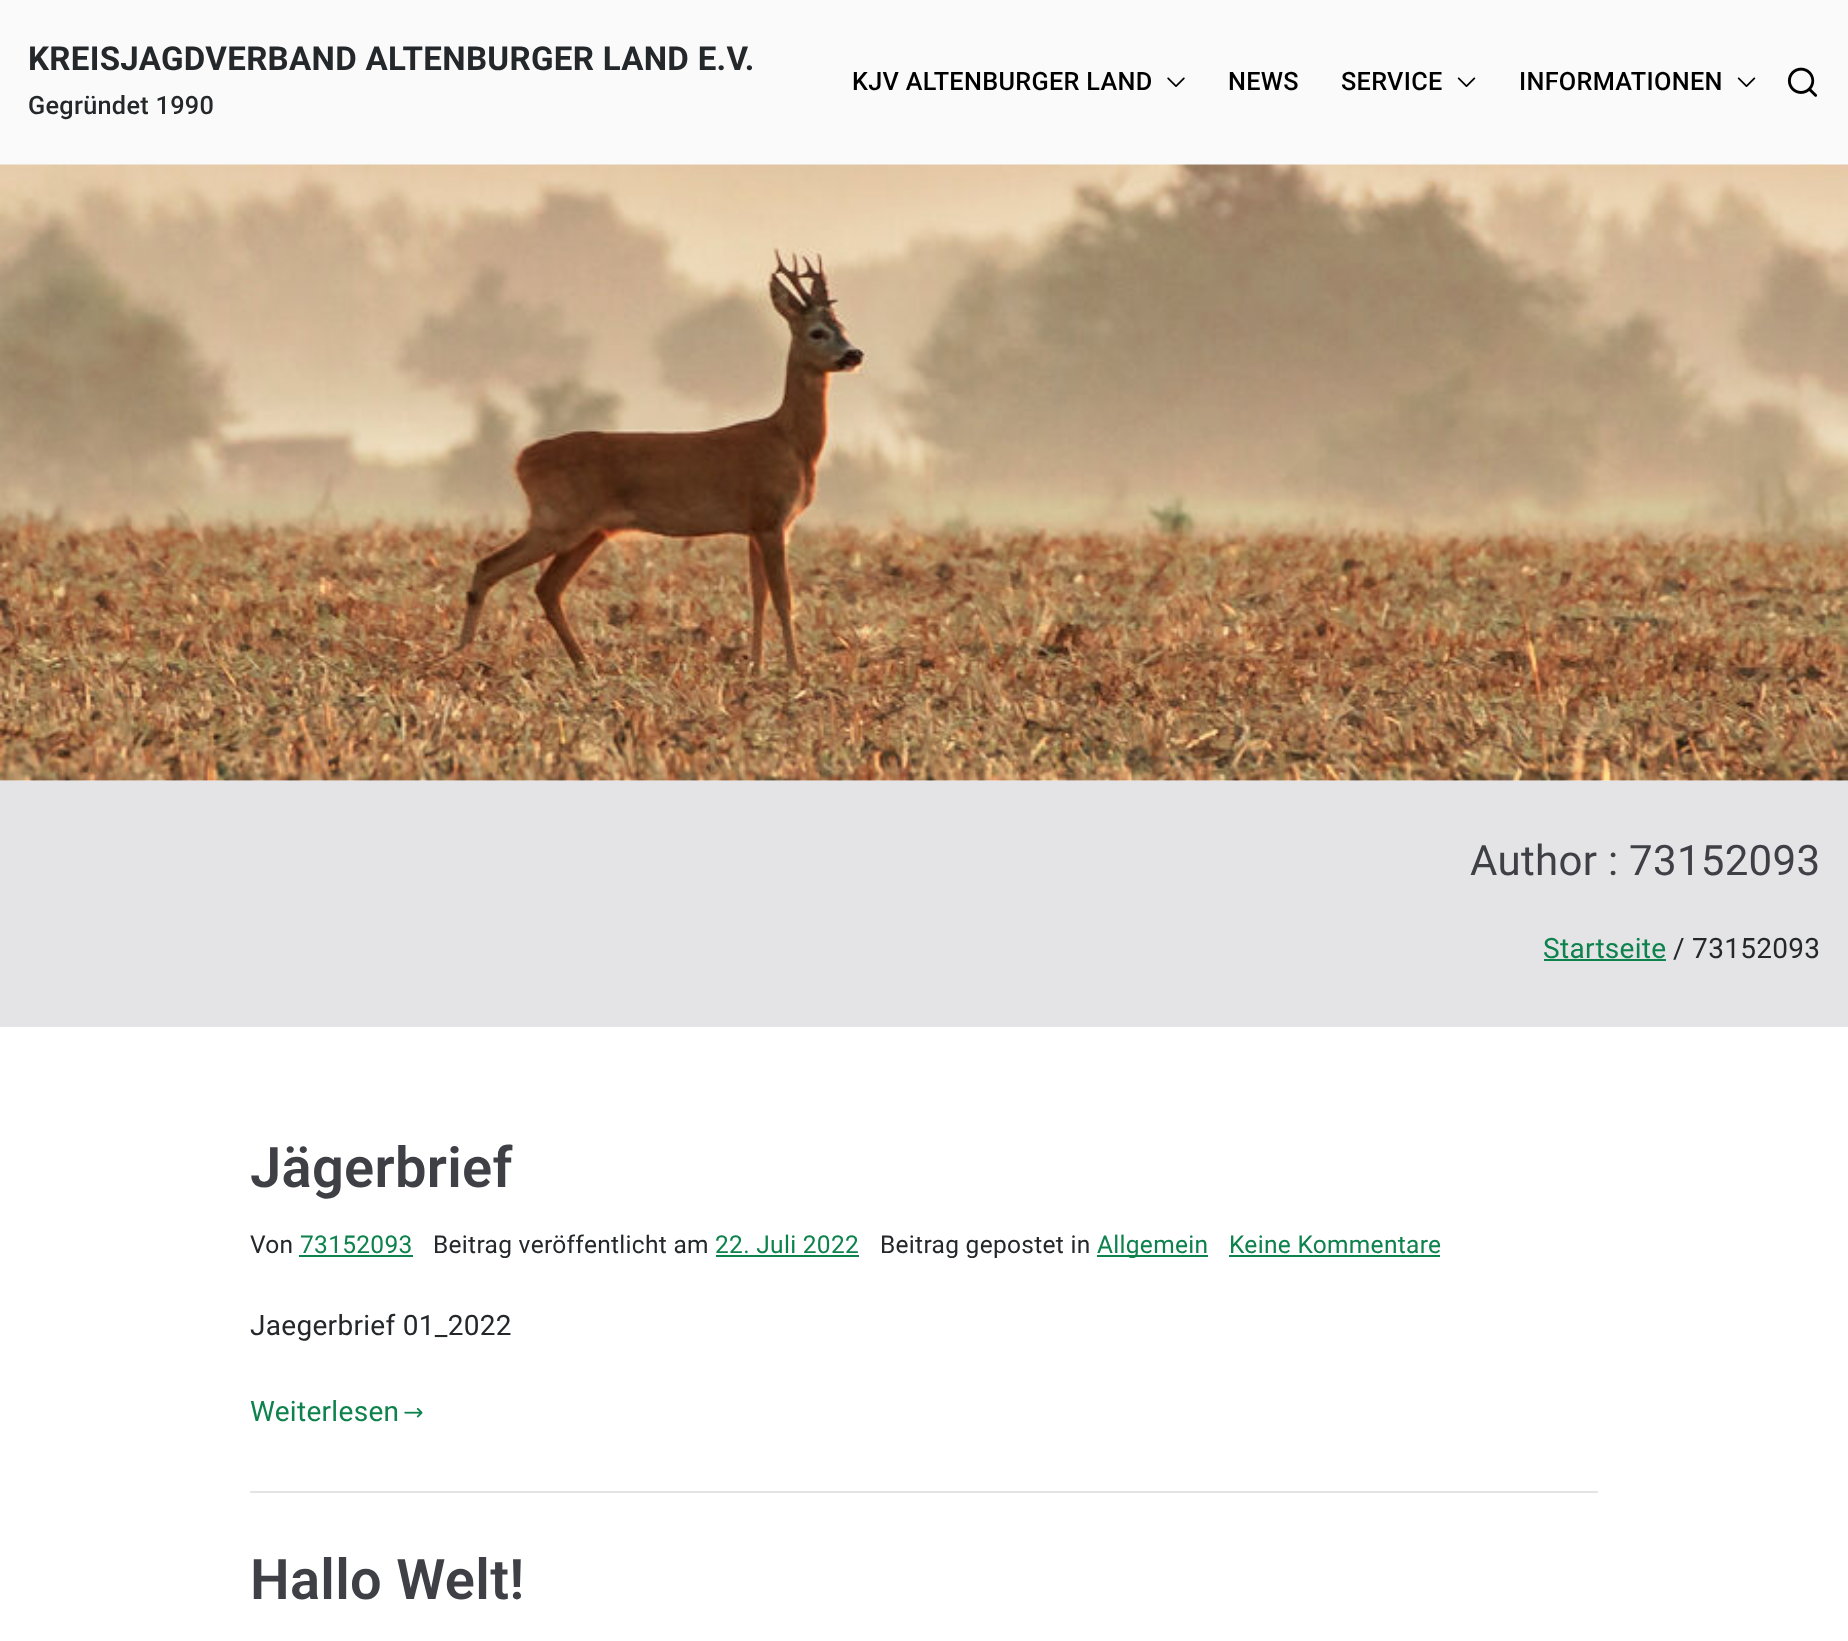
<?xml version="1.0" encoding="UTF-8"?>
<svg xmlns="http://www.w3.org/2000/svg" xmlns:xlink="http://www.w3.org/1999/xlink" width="1848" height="1641">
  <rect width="100%" height="100%" fill="#fafafa" />
  <rect y="781" width="1848" height="246" fill="#e4e4e7" />
  <image x="1167" y="77" width="18" height="10" xlink:href="image1.png" />
  <image x="1457" y="77" width="19" height="10" xlink:href="image2.png" />
  <image x="1737" y="77" width="19" height="10" xlink:href="image2.png" />
  <image x="1787" y="67" width="31" height="30" xlink:href="image3.png" />
  <image x="0" y="164" width="1848" height="617" xlink:href="image4.png" />
  <rect x="1544" y="959" width="122" height="2" fill="#0e824c" />
  <rect y="1027" width="1848" height="614" fill="#ffffff" />
  <rect x="250" y="1491" width="1348" height="2" fill="#e4e4e7" />
  <rect x="299" y="1255" width="114" height="2" fill="#0e824c" />
  <rect x="716" y="1255" width="143" height="2" fill="#0e824c" />
  <rect x="1097" y="1255" width="111" height="2" fill="#0e824c" />
  <rect x="1229" y="1255" width="211" height="2" fill="#0e824c" />
  <image x="404" y="1407" width="19" height="11" xlink:href="image5.png" />
  <text x="28" y="70" style="font-family: Roboto; font-size: 33.1px; font-weight: bold; letter-spacing: 0.3px; fill: #24282b">KREISJAGDVERBAND ALTENBURGER LAND E.V.</text>
  <text x="28" y="114" style="font-family: Roboto; font-size: 25.25px; font-weight: 500; letter-spacing: 0.3px; fill: #24282b">Gegründet 1990</text>
  <text x="852" y="90" style="font-family: Roboto; font-size: 25.25px; font-weight: 500; letter-spacing: 0.3px; fill: #000000">KJV ALTENBURGER LAND</text>
  <text x="1228" y="90" style="font-family: Roboto; font-size: 25.25px; font-weight: 500; letter-spacing: 0.3px; fill: #000000">NEWS</text>
  <text x="1341" y="90" style="font-family: Roboto; font-size: 25.25px; font-weight: 500; letter-spacing: 0.3px; fill: #000000">SERVICE</text>
  <text x="1519" y="90" style="font-family: Roboto; font-size: 25.25px; font-weight: 500; letter-spacing: 0.3px; fill: #000000">INFORMATIONEN</text>
  <text x="1470" y="875" style="font-family: Roboto; font-size: 42px; letter-spacing: 0.3px; fill: #3f3f46">Author : 73152093</text>
  <text x="1543" y="958" style="font-family: Roboto; font-size: 28px; letter-spacing: 0.3px; fill: #0e824c">Startseite</text>
  <text x="1673" y="958" style="font-family: Roboto; font-size: 28px; letter-spacing: 0.3px; fill: #24282b">/ 73152093</text>
  <text x="250" y="1187" style="font-family: Roboto; font-size: 56px; font-weight: 600; letter-spacing: 0.3px; fill: #3f3f46">Jägerbrief</text>
  <text x="250" y="1253" style="font-family: Roboto; font-size: 24.5px; letter-spacing: 0.3px; fill: #24282b">Von</text>
  <text x="300" y="1253" style="font-family: Roboto; font-size: 24.5px; letter-spacing: 0.3px; fill: #0e824c">73152093</text>
  <text x="433" y="1253" style="font-family: Roboto; font-size: 24.5px; letter-spacing: 0.3px; fill: #24282b">Beitrag veröffentlicht am</text>
  <text x="715" y="1253" style="font-family: Roboto; font-size: 24.5px; letter-spacing: 0.3px; fill: #0e824c">22. Juli 2022</text>
  <text x="880" y="1253" style="font-family: Roboto; font-size: 24.5px; letter-spacing: 0.3px; fill: #24282b">Beitrag gepostet in</text>
  <text x="1097" y="1253" style="font-family: Roboto; font-size: 24.5px; letter-spacing: 0.3px; fill: #0e824c">Allgemein</text>
  <text x="1229" y="1253" style="font-family: Roboto; font-size: 24.5px; letter-spacing: 0.3px; fill: #0e824c">Keine Kommentare</text>
  <text x="250" y="1335" style="font-family: Roboto; font-size: 28px; letter-spacing: 0.3px; fill: #24282b">Jaegerbrief 01_2022</text>
  <text x="250" y="1421" style="font-family: Roboto; font-size: 28px; letter-spacing: 0.3px; fill: #0e824c">Weiterlesen</text>
  <text x="250" y="1599" style="font-family: Roboto; font-size: 56px; font-weight: 600; letter-spacing: 0.3px; fill: #3f3f46">Hallo Welt!</text>
</svg>
